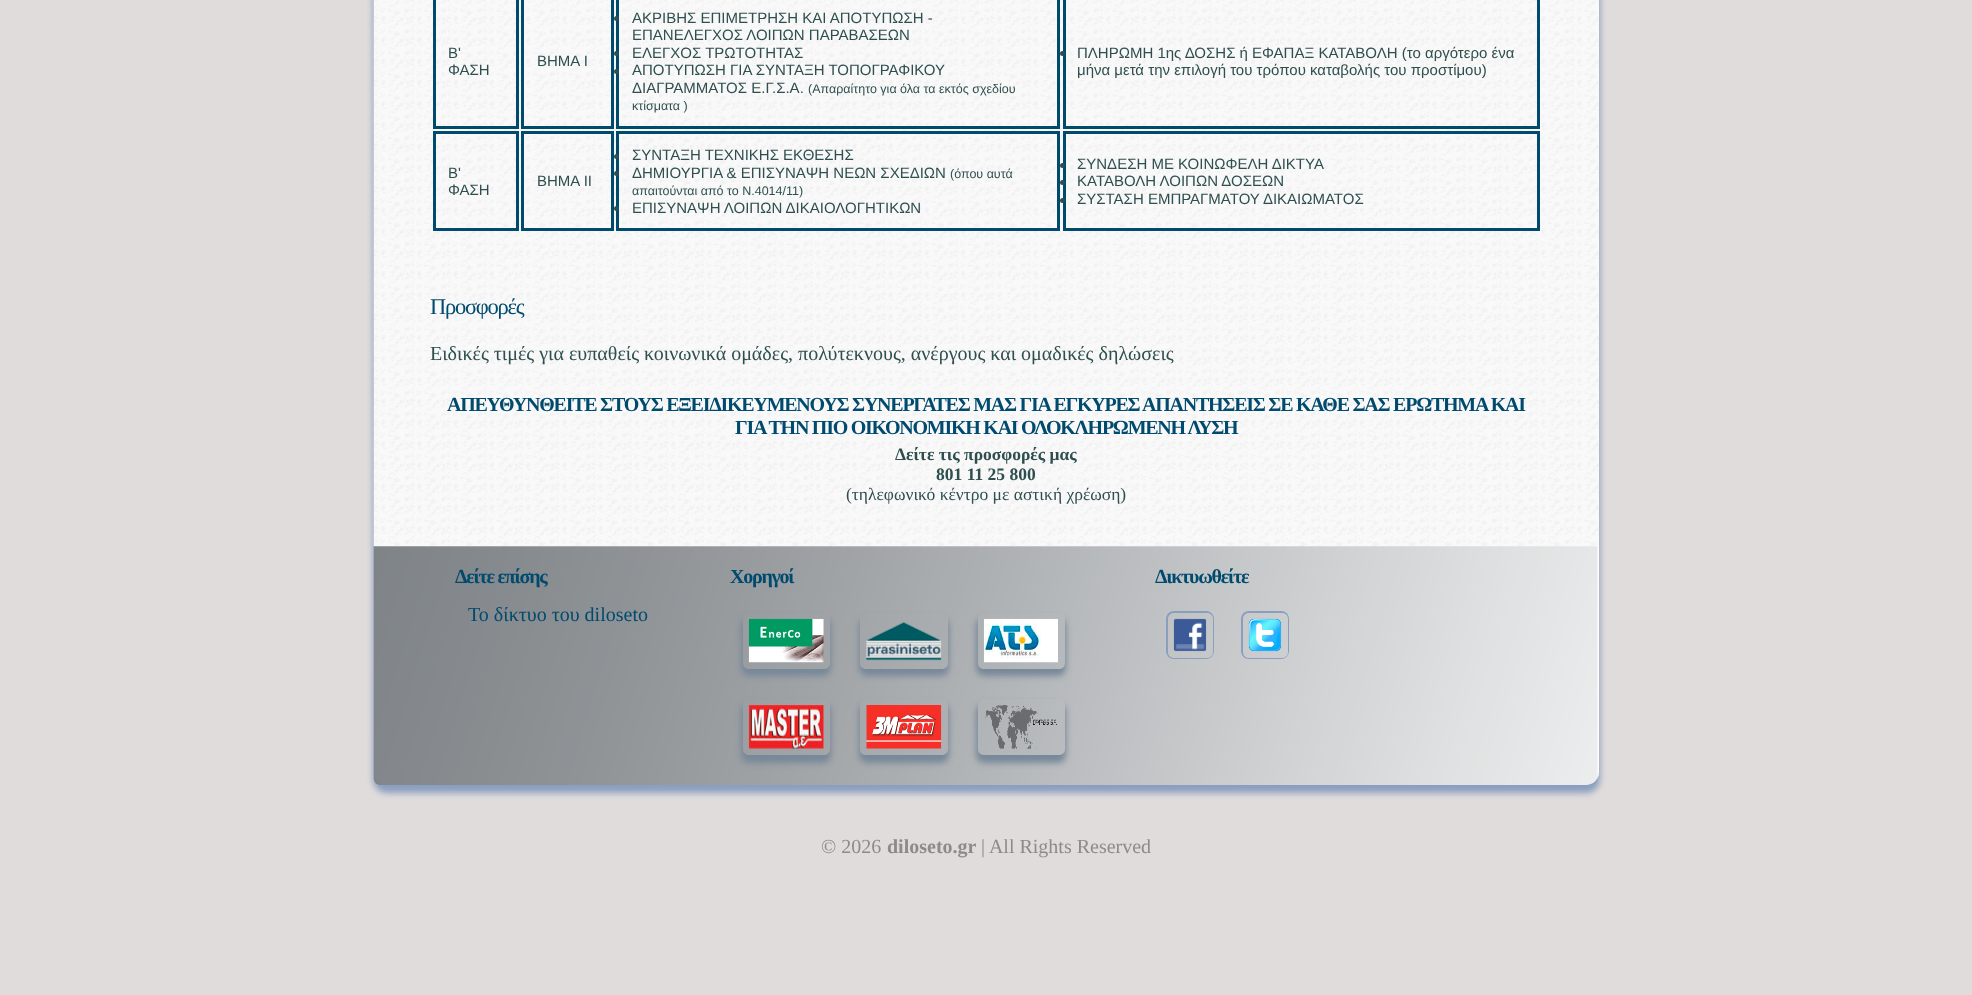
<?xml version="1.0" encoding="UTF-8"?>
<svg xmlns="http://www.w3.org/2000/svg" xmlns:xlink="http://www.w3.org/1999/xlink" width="1972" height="995">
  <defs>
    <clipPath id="clip1"><path d="M 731 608 h 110 v 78 h -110 z m 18 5 h 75 c 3.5 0 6 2.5 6 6 v 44 c 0 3.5 -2.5 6 -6 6 h -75 c -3.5 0 -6 -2.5 -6 -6 v -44 c 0 -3.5 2.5 -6 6 -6 z" clip-rule="evenodd" /></clipPath>
    <clipPath id="clip2"><path d="M 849 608 h 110 v 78 h -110 z m 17 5 h 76 c 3.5 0 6 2.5 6 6 v 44 c 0 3.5 -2.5 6 -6 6 h -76 c -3.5 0 -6 -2.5 -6 -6 v -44 c 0 -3.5 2.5 -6 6 -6 z" clip-rule="evenodd" /></clipPath>
    <clipPath id="clip3"><path d="M 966 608 h 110 v 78 h -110 z m 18 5 h 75 c 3.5 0 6 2.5 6 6 v 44 c 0 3.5 -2.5 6 -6 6 h -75 c -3.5 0 -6 -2.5 -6 -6 v -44 c 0 -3.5 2.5 -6 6 -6 z" clip-rule="evenodd" /></clipPath>
    <clipPath id="clip4"><path d="M 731 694 h 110 v 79 h -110 z m 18 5 h 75 c 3.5 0 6 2.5 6 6 v 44 c 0 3.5 -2.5 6 -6 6 h -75 c -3.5 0 -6 -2.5 -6 -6 v -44 c 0 -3.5 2.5 -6 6 -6 z" clip-rule="evenodd" /></clipPath>
    <clipPath id="clip5"><path d="M 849 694 h 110 v 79 h -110 z m 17 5 h 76 c 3.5 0 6 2.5 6 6 v 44 c 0 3.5 -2.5 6 -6 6 h -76 c -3.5 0 -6 -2.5 -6 -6 v -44 c 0 -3.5 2.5 -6 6 -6 z" clip-rule="evenodd" /></clipPath>
    <clipPath id="clip6"><path d="M 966 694 h 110 v 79 h -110 z m 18 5 h 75 c 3.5 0 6 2.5 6 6 v 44 c 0 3.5 -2.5 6 -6 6 h -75 c -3.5 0 -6 -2.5 -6 -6 v -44 c 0 -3.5 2.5 -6 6 -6 z" clip-rule="evenodd" /></clipPath>
    <clipPath id="clip7"><path d="M 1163 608 h 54 v 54 h -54 z m 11 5 h 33 c 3.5 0 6 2.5 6 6 v 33 c 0 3.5 -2.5 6 -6 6 h -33 c -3.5 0 -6 -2.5 -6 -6 v -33 c 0 -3.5 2.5 -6 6 -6 z" clip-rule="evenodd" /></clipPath>
    <clipPath id="clip8"><path d="M 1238 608 h 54 v 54 h -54 z m 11 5 h 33 c 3.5 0 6 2.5 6 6 v 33 c 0 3.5 -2.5 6 -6 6 h -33 c -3.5 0 -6 -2.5 -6 -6 v -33 c 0 -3.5 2.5 -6 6 -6 z" clip-rule="evenodd" /></clipPath>
  </defs>
  <rect width="100%" height="100%" fill="#e0dcdc" />
  <rect x="373" y="-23" width="1227" height="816" rx="14" fill="#8a9ebf" filter="blur(3px)" />
  <rect x="374" y="-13" width="1225" height="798" rx="13" fill="#ffffff" />
  <image x="373" y="0" width="1226" height="547" xlink:href="image1.png" />
  <rect x="434.5" y="-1.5" width="83" height="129" fill="none" stroke="#004a6e" stroke-width="3" />
  <rect x="522.5" y="-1.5" width="90" height="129" fill="none" stroke="#004a6e" stroke-width="3" />
  <rect x="617.5" y="-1.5" width="441" height="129" fill="none" stroke="#004a6e" stroke-width="3" />
  <circle cx="616.5" cy="18.5" r="2.5" fill="#2f4f4f" />
  <circle cx="616.5" cy="53.5" r="2.5" fill="#2f4f4f" />
  <circle cx="616.5" cy="71.5" r="2.5" fill="#2f4f4f" />
  <rect x="1064.5" y="-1.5" width="474" height="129" fill="none" stroke="#004a6e" stroke-width="3" />
  <circle cx="1062.5" cy="53.5" r="2.5" fill="#2f4f4f" />
  <rect x="434.5" y="132.5" width="83" height="97" fill="none" stroke="#004a6e" stroke-width="3" />
  <rect x="522.5" y="132.5" width="90" height="97" fill="none" stroke="#004a6e" stroke-width="3" />
  <rect x="617.5" y="132.5" width="441" height="97" fill="none" stroke="#004a6e" stroke-width="3" />
  <circle cx="616.5" cy="156.5" r="2.5" fill="#2f4f4f" />
  <circle cx="616.5" cy="173.5" r="2.5" fill="#2f4f4f" />
  <circle cx="616.5" cy="208.5" r="2.5" fill="#2f4f4f" />
  <rect x="1064.5" y="132.5" width="474" height="97" fill="none" stroke="#004a6e" stroke-width="3" />
  <circle cx="1062.5" cy="165.5" r="2.5" fill="#2f4f4f" />
  <circle cx="1062.5" cy="182.5" r="2.5" fill="#2f4f4f" />
  <circle cx="1062.5" cy="200.5" r="2.5" fill="#2f4f4f" />
  <image x="373" y="546" width="1225" height="239" xlink:href="image2.png" />
  <g clip-path="url(#clip1)">
    <rect x="741" y="618" width="90" height="58" rx="8" fill="#778899" filter="blur(3px)" />
  </g>
  <g clip-path="url(#clip2)">
    <rect x="859" y="618" width="90" height="58" rx="8" fill="#778899" filter="blur(3px)" />
  </g>
  <g clip-path="url(#clip3)">
    <rect x="976" y="618" width="90" height="58" rx="8" fill="#778899" filter="blur(3px)" />
  </g>
  <image x="748" y="618" width="76" height="45" xlink:href="image3.png" />
  <image x="866" y="621" width="76" height="40" xlink:href="image4.png" />
  <image x="983" y="618" width="75" height="45" xlink:href="image5.png" />
  <g clip-path="url(#clip4)">
    <rect x="741" y="704" width="90" height="59" rx="8" fill="#778899" filter="blur(3px)" />
  </g>
  <g clip-path="url(#clip5)">
    <rect x="859" y="704" width="90" height="59" rx="8" fill="#778899" filter="blur(3px)" />
  </g>
  <g clip-path="url(#clip6)">
    <rect x="976" y="704" width="90" height="59" rx="8" fill="#778899" filter="blur(3px)" />
  </g>
  <image x="748" y="705" width="76" height="44" xlink:href="image6.png" />
  <image x="866" y="705" width="76" height="44" xlink:href="image7.png" />
  <image x="985" y="705" width="72" height="44" xlink:href="image8.png" />
  <g clip-path="url(#clip7)">
    <rect x="1166" y="611" width="48" height="48" rx="8" fill="#8a9ebf" filter="blur(0.5px)" />
  </g>
  <g clip-path="url(#clip8)">
    <rect x="1241" y="611" width="48" height="48" rx="8" fill="#8a9ebf" filter="blur(0.5px)" />
  </g>
  <image x="1173" y="618" width="34" height="34" xlink:href="image9.png" />
  <image x="1248" y="618" width="34" height="34" xlink:href="image10.png" />
  <text x="448" y="58" style="font-family: Liberation Sans; font-size: 15px; fill: #2f4f4f">Β'</text>
  <text x="448" y="75" style="font-family: Liberation Sans; font-size: 15px; fill: #2f4f4f">ΦΑΣΗ</text>
  <text x="537" y="66" style="font-family: Liberation Sans; font-size: 15px; fill: #2f4f4f">ΒΗΜΑ Ι</text>
  <text x="632" y="23" style="font-family: Liberation Sans; font-size: 15px; fill: #2f4f4f">ΑΚΡΙΒΗΣ ΕΠΙΜΕΤΡΗΣΗ ΚΑΙ ΑΠΟΤΥΠΩΣΗ -</text>
  <text x="632" y="40" style="font-family: Liberation Sans; font-size: 15px; fill: #2f4f4f">ΕΠΑΝΕΛΕΓΧΟΣ ΛΟΙΠΩΝ ΠΑΡΑΒΑΣΕΩΝ</text>
  <text x="632" y="58" style="font-family: Liberation Sans; font-size: 15px; fill: #2f4f4f">ΕΛΕΓΧΟΣ ΤΡΩΤΟΤΗΤΑΣ</text>
  <text x="632" y="75" style="font-family: Liberation Sans; font-size: 15px; fill: #2f4f4f">ΑΠΟΤΥΠΩΣΗ ΓΙΑ ΣΥΝΤΑΞΗ ΤΟΠΟΓΡΑΦΙΚΟΥ</text>
  <text x="632" y="93" style="font-family: Liberation Sans; font-size: 15px; fill: #2f4f4f">ΔΙΑΓΡΑΜΜΑΤΟΣ Ε.Γ.Σ.Α.</text>
  <text x="808" y="93" style="font-family: Liberation Sans; font-size: 12.5px; fill: #2f4f4f">(Απαραίτητο για όλα τα εκτός σχεδίου</text>
  <text x="632" y="110" style="font-family: Liberation Sans; font-size: 12.5px; fill: #2f4f4f">κτίσματα )</text>
  <text x="1077" y="58" style="font-family: Liberation Sans; font-size: 15px; fill: #2f4f4f">ΠΛΗΡΩΜΗ 1ης ΔΟΣΗΣ ή ΕΦΑΠΑΞ ΚΑΤΑΒΟΛΗ (το αργότερο ένα</text>
  <text x="1077" y="75" style="font-family: Liberation Sans; font-size: 15px; fill: #2f4f4f">μήνα μετά την επιλογή του τρόπου καταβολής του προστίμου)</text>
  <text x="448" y="178" style="font-family: Liberation Sans; font-size: 15px; fill: #2f4f4f">Β'</text>
  <text x="448" y="195" style="font-family: Liberation Sans; font-size: 15px; fill: #2f4f4f">ΦΑΣΗ</text>
  <text x="537" y="186" style="font-family: Liberation Sans; font-size: 15px; fill: #2f4f4f">ΒΗΜΑ ΙΙ</text>
  <text x="632" y="160" style="font-family: Liberation Sans; font-size: 15px; fill: #2f4f4f">ΣΥΝΤΑΞΗ ΤΕΧΝΙΚΗΣ ΕΚΘΕΣΗΣ</text>
  <text x="632" y="178" style="font-family: Liberation Sans; font-size: 15px; fill: #2f4f4f">ΔΗΜΙΟΥΡΓΙΑ &amp; ΕΠΙΣΥΝΑΨΗ ΝΕΩΝ ΣΧΕΔΙΩΝ</text>
  <text x="950" y="178" style="font-family: Liberation Sans; font-size: 12.5px; fill: #2f4f4f">(όπου αυτά</text>
  <text x="632" y="195" style="font-family: Liberation Sans; font-size: 12.5px; fill: #2f4f4f">απαιτούνται από το Ν.4014/11)</text>
  <text x="632" y="213" style="font-family: Liberation Sans; font-size: 15px; fill: #2f4f4f">ΕΠΙΣΥΝΑΨΗ ΛΟΙΠΩΝ ΔΙΚΑΙΟΛΟΓΗΤΙΚΩΝ</text>
  <text x="1077" y="169" style="font-family: Liberation Sans; font-size: 15px; fill: #2f4f4f">ΣΥΝΔΕΣΗ ΜΕ ΚΟΙΝΩΦΕΛΗ ΔΙΚΤΥΑ</text>
  <text x="1077" y="186" style="font-family: Liberation Sans; font-size: 15px; fill: #2f4f4f">ΚΑΤΑΒΟΛΗ ΛΟΙΠΩΝ ΔΟΣΕΩΝ</text>
  <text x="1077" y="204" style="font-family: Liberation Sans; font-size: 15px; fill: #2f4f4f">ΣΥΣΤΑΣΗ ΕΜΠΡΑΓΜΑΤΟΥ ΔΙΚΑΙΩΜΑΤΟΣ</text>
  <text x="430" y="314" style="font-family: Liberation Serif; font-size: 22.5px; letter-spacing: -1.25px; fill: #004a6e">Προσφορές</text>
  <text x="430" y="360" style="font-family: Liberation Serif; font-size: 20px; fill: #2f4f4f">Ειδικές τιμές για ευπαθείς κοινωνικά ομάδες, πολύτεκνους, ανέργους και ομαδικές δηλώσεις</text>
  <text x="447" y="411" style="font-family: Liberation Serif; font-size: 20px; font-weight: bold; letter-spacing: -1.25px; fill: #004a6e">ΑΠΕΥΘΥΝΘΕΙΤΕ ΣΤΟΥΣ ΕΞΕΙΔΙΚΕΥΜΕΝΟΥΣ ΣΥΝΕΡΓΑΤΕΣ ΜΑΣ ΓΙΑ ΕΓΚΥΡΕΣ ΑΠΑΝΤΗΣΕΙΣ ΣΕ ΚΑΘΕ ΣΑΣ ΕΡΩΤΗΜΑ ΚΑΙ</text>
  <text x="735" y="434" style="font-family: Liberation Serif; font-size: 20px; font-weight: bold; letter-spacing: -1.25px; fill: #004a6e">ΓΙΑ ΤΗΝ ΠΙΟ ΟΙΚΟΝΟΜΙΚΗ ΚΑΙ ΟΛΟΚΛΗΡΩΜΕΝΗ ΛΥΣΗ</text>
  <text x="895" y="460" style="font-family: Liberation Serif; font-size: 17.5px; font-weight: bold; fill: #2f4f4f">Δείτε τις προσφορές μας</text>
  <text x="936" y="480" style="font-family: Liberation Serif; font-size: 17.5px; font-weight: bold; fill: #2f4f4f">801 11 25 800</text>
  <text x="846" y="500" style="font-family: Liberation Serif; font-size: 17.5px; fill: #2f4f4f">(τηλεφωνικό κέντρο με αστική χρέωση)</text>
  <text x="455" y="583" style="font-family: Liberation Serif; font-size: 20px; font-weight: bold; letter-spacing: -1.25px; fill: #004a6e">Δείτε επίσης</text>
  <text x="468" y="621" style="font-family: Liberation Serif; font-size: 20px; fill: #004a6e">Το δίκτυο του diloseto</text>
  <text x="730" y="583" style="font-family: Liberation Serif; font-size: 20px; font-weight: bold; letter-spacing: -1.25px; fill: #004a6e">Χορηγοί</text>
  <text x="1155" y="583" style="font-family: Liberation Serif; font-size: 20px; font-weight: bold; letter-spacing: -1.25px; fill: #004a6e">Δικτυωθείτε</text>
  <text x="821" y="853" style="font-family: Liberation Serif; font-size: 20px; fill: #8c8b8b">© 2026</text>
  <text x="887" y="853" style="font-family: Liberation Serif; font-size: 20px; font-weight: bold; fill: #8c8b8b">diloseto.gr</text>
  <text x="981" y="853" style="font-family: Liberation Serif; font-size: 20px; fill: #8c8b8b">| All Rights Reserved</text>
</svg>
